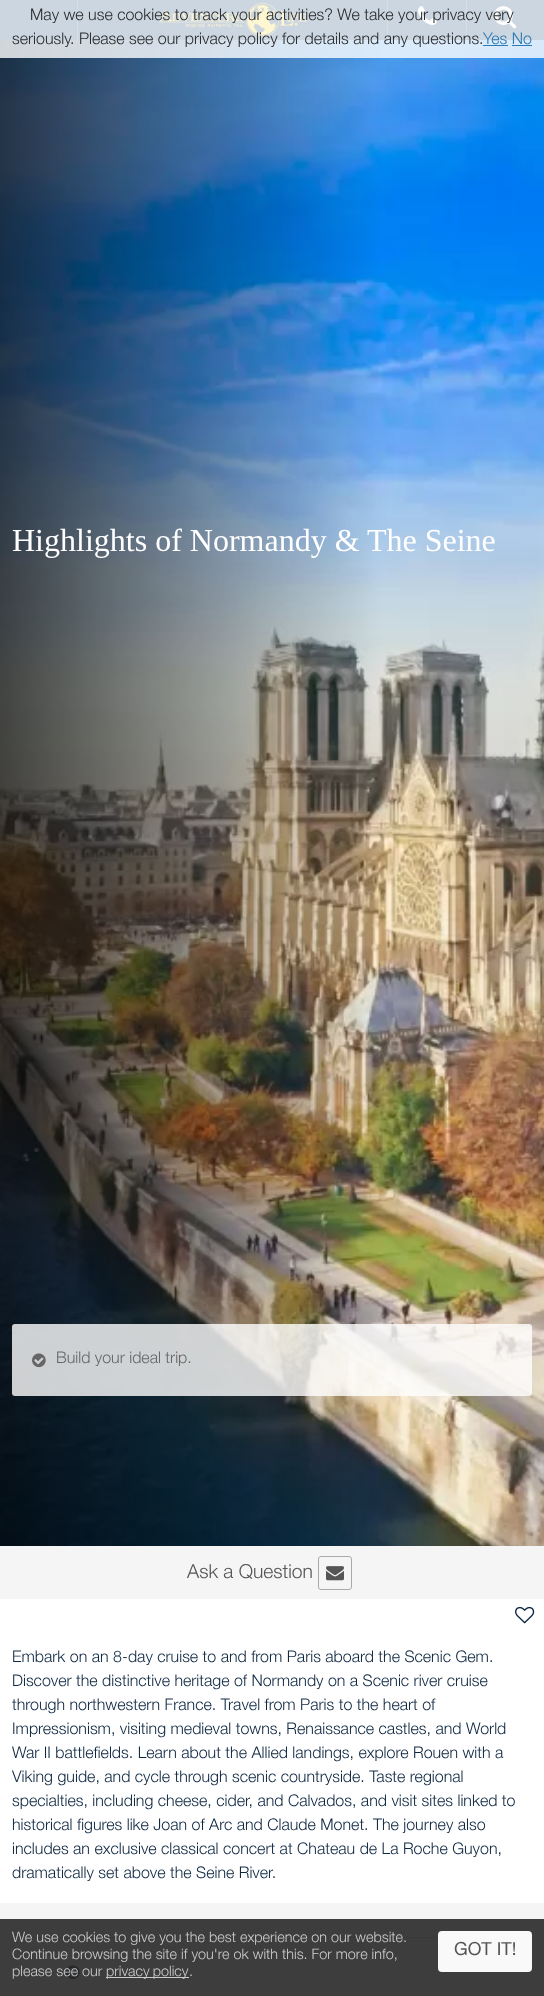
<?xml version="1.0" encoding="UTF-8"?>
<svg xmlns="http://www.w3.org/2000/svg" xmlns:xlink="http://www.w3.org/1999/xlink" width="544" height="1996">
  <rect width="100%" height="100%" fill="#f5f5f5" />
  <rect width="544" height="40" fill="#003366" />
  <rect x="77" width="1" height="40" fill="#365d84" />
  <rect x="387" width="1" height="40" fill="#365d84" />
  <image x="159" y="3" width="148" height="34" xlink:href="image1.png" />
  <rect x="466" width="1" height="40" fill="#365d84" />
  <image x="418" y="6" width="19" height="19" xlink:href="image2.png" />
  <image x="494" y="6" width="23" height="23" xlink:href="image3.png" />
  <image x="0" y="40" width="544" height="1506" xlink:href="image4.png" />
  <rect width="544" height="58" fill="#ffffff" fill-opacity="0.8" />
  <rect x="483" y="45" width="25" height="1" fill="#2b7bb5" />
  <rect x="512" y="45" width="20" height="1" fill="#2b7bb5" />
  <rect x="12" y="1324" width="520" height="72" rx="3" fill="#ffffff" fill-opacity="0.8" />
  <image x="32" y="1353" width="14" height="15" xlink:href="image5.png" />
  <rect x="318.5" y="1556.5" width="33" height="33" rx="2.5" fill="none" stroke="#aaaaaa" />
  <image x="326" y="1566" width="18" height="15" xlink:href="image6.png" />
  <rect y="1599" width="544" height="304" fill="#ffffff" />
  <image x="515" y="1606" width="20" height="18" xlink:href="image7.png" />
  <rect x="32" y="1937" width="173" height="1" fill="#cccccc" />
  <rect x="339" y="1937" width="99" height="1" fill="#cccccc" />
  <image x="66" y="1965" width="14" height="15" xlink:href="image8.png" />
  <rect y="1919" width="544" height="77" fill="#292929" fill-opacity="0.9" />
  <rect x="438" y="1931" width="94" height="41" rx="4" fill="#f9f9f9" />
  <rect x="106" y="1977" width="83" height="1" fill="#cccccc" />
  <text x="30" y="20" style="font-family: Helvetica Neue; font-size: 16px; font-weight: 300; fill: #2a2c2d">May we use cookies to track your activities? We take your privacy very</text>
  <text x="12" y="44" style="font-family: Helvetica Neue; font-size: 16px; font-weight: 300; fill: #2a2c2d">seriously. Please see our privacy policy for details and any questions.</text>
  <text x="483" y="44" style="font-family: Helvetica Neue; font-size: 16px; font-weight: 300; fill: #2a78b1">Yes No</text>
  <text x="12" y="551" style="font-family: Liberation Serif; font-size: 32px; fill: #ffffff">Highlights of Normandy &amp; The Seine</text>
  <text x="56" y="1363" style="font-family: Helvetica Neue; font-size: 16px; font-weight: 300; fill: #666666">Build your ideal trip.</text>
  <text x="187" y="1578" style="font-family: Helvetica Neue; font-size: 19.25px; font-weight: 300; fill: #555555">Ask a Question</text>
  <text x="12" y="1662" style="font-family: Helvetica Neue; font-size: 16px; font-weight: 300; fill: #0e2741">Embark on an 8-day cruise to and from Paris aboard the Scenic Gem.</text>
  <text x="12" y="1686" style="font-family: Helvetica Neue; font-size: 16px; font-weight: 300; fill: #0e2741">Discover the distinctive heritage of Normandy on a Scenic river cruise</text>
  <text x="12" y="1710" style="font-family: Helvetica Neue; font-size: 16px; font-weight: 300; fill: #0e2741">through northwestern France. Travel from Paris to the heart of</text>
  <text x="12" y="1734" style="font-family: Helvetica Neue; font-size: 16px; font-weight: 300; fill: #0e2741">Impressionism, visiting medieval towns, Renaissance castles, and World</text>
  <text x="12" y="1758" style="font-family: Helvetica Neue; font-size: 16px; font-weight: 300; fill: #0e2741">War II battlefields. Learn about the Allied landings, explore Rouen with a</text>
  <text x="12" y="1782" style="font-family: Helvetica Neue; font-size: 16px; font-weight: 300; fill: #0e2741">Viking guide, and cycle through scenic countryside. Taste regional</text>
  <text x="12" y="1806" style="font-family: Helvetica Neue; font-size: 16px; font-weight: 300; fill: #0e2741">specialties, including cheese, cider, and Calvados, and visit sites linked to</text>
  <text x="12" y="1830" style="font-family: Helvetica Neue; font-size: 16px; font-weight: 300; fill: #0e2741">historical figures like Joan of Arc and Claude Monet. The journey also</text>
  <text x="12" y="1854" style="font-family: Helvetica Neue; font-size: 16px; font-weight: 300; fill: #0e2741">includes an exclusive classical concert at Chateau de La Roche Guyon,</text>
  <text x="12" y="1878" style="font-family: Helvetica Neue; font-size: 16px; font-weight: 300; fill: #0e2741">dramatically set above the Seine River.</text>
  <text x="12" y="1942" style="font-family: Helvetica Neue; font-size: 14.4px; font-weight: 300; fill: #cccccc">We use cookies to give you the best experience on our website.</text>
  <text x="12" y="1959" style="font-family: Helvetica Neue; font-size: 14.4px; font-weight: 300; fill: #cccccc">Continue browsing the site if you're ok with this. For more info,</text>
  <text x="454" y="1955" style="font-family: Helvetica Neue; font-size: 18px; fill: #555555">GOT IT!</text>
  <text x="12" y="1976" style="font-family: Helvetica Neue; font-size: 14.4px; font-weight: 300; fill: #cccccc">please see our</text>
  <text x="106" y="1976" word-spacing="-1" style="font-family: Helvetica Neue; font-size: 14.4px; font-weight: 300; fill: #cccccc">privacy policy</text>
  <text x="189" y="1976" style="font-family: Helvetica Neue; font-size: 14.4px; font-weight: 300; fill: #cccccc">.</text>
</svg>
